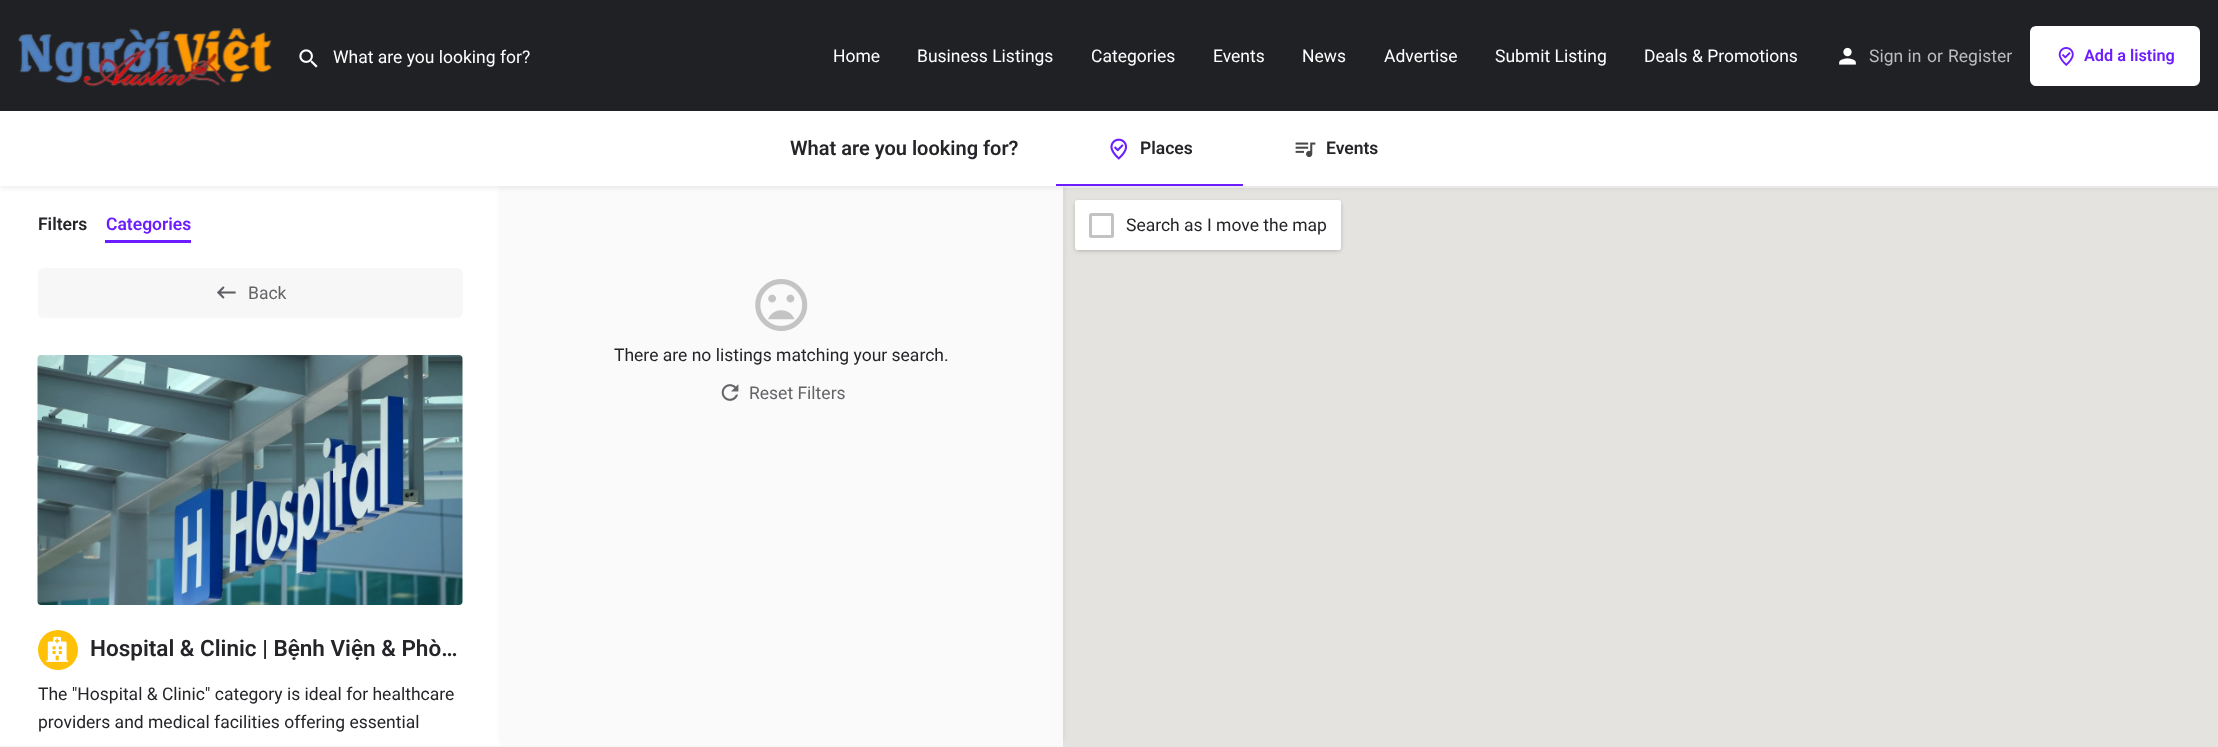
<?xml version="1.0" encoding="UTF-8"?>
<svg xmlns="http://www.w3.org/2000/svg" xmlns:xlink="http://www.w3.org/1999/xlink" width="2218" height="747">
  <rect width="100%" height="100%" fill="#f4f4f4" />
  <rect y="186" width="500" height="560" fill="#ffffff" />
  <rect x="1063" y="188" width="1155" height="559" fill="#e5e3df" />
  <rect x="501" y="181" width="563" height="560" fill="#000000" fill-opacity="0.07" filter="blur(2.5px)" />
  <rect x="500" y="186" width="563" height="560" fill="#fafafa" />
  <rect y="113" width="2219" height="75" fill="#000000" fill-opacity="0.07" filter="blur(2.5px)" />
  <rect width="2218" height="111" fill="#202125" />
  <image x="18" y="28" width="254" height="59" xlink:href="image1.png" />
  <image x="299" y="49" width="19" height="19" xlink:href="image2.png" />
  <image x="1839" y="47" width="17" height="18" xlink:href="image3.png" />
  <rect x="2030" y="26" width="170" height="60" rx="6" fill="#ffffff" />
  <image x="2058" y="47" width="16" height="19" xlink:href="image4.png" />
  <rect y="111" width="2218" height="75" fill="#ffffff" />
  <image x="1110" y="138" width="18" height="22" xlink:href="image5.png" />
  <rect x="1056" y="184" width="187" height="2" fill="#6c1cff" />
  <image x="1295" y="142" width="21" height="16" xlink:href="image6.png" />
  <rect x="105" y="240" width="86" height="3" fill="#6c1cff" />
  <rect x="38" y="268" width="425" height="50" rx="6" fill="#f6f7f6" />
  <image x="217" y="286" width="19" height="13" xlink:href="image7.png" />
  <image x="37" y="355" width="426" height="250" xlink:href="image8.png" />
  <circle cx="58" cy="650" r="20" fill="#ffc107" />
  <image x="46" y="636" width="23" height="26" xlink:href="image9.png" />
  <image x="755" y="279" width="53" height="52" xlink:href="image10.png" />
  <image x="721" y="384" width="18" height="17" xlink:href="image11.png" />
  <rect x="1076" y="203" width="264" height="47" rx="1" fill="#000000" fill-opacity="0.3" filter="blur(2.5px)" />
  <rect x="1075" y="200" width="266" height="50" rx="2.5" fill="#ffffff" />
  <rect x="1090.5" y="214.5" width="22" height="22" rx="1" fill="none" stroke="#c2c2c2" stroke-width="3" />
  <text x="333" y="63" style="font-family: Roboto; font-size: 17.5px; fill: #ffffff">What are you looking for?</text>
  <text x="833" y="62" style="font-family: Roboto; font-size: 17.5px; fill: #ffffff">Home</text>
  <text x="917" y="62" style="font-family: Roboto; font-size: 17.5px; fill: #ffffff">Business Listings</text>
  <text x="1091" y="62" style="font-family: Roboto; font-size: 17.5px; fill: #ffffff">Categories</text>
  <text x="1213" y="62" style="font-family: Roboto; font-size: 17.5px; fill: #ffffff">Events</text>
  <text x="1302" y="62" style="font-family: Roboto; font-size: 17.5px; fill: #ffffff">News</text>
  <text x="1384" y="62" style="font-family: Roboto; font-size: 17.5px; fill: #ffffff">Advertise</text>
  <text x="1495" y="62" style="font-family: Roboto; font-size: 17.5px; fill: #ffffff">Submit Listing</text>
  <text x="1644" y="62" style="font-family: Roboto; font-size: 17.5px; fill: #ffffff">Deals &amp; Promotions</text>
  <text x="1869" y="62" style="font-family: Roboto; font-size: 17.5px; fill: #bcbcbe">Sign in</text>
  <text x="1927" y="62" style="font-family: Roboto; font-size: 17.5px; fill: #bcbcbe">or</text>
  <text x="1948" y="62" style="font-family: Roboto; font-size: 17.5px; fill: #bcbcbe">Register</text>
  <text x="2084" y="61" style="font-family: Roboto; font-size: 16.25px; font-weight: 600; fill: #6c1cff">Add a listing</text>
  <text x="790" y="155" style="font-family: Roboto; font-size: 20px; font-weight: 600; fill: #242429">What are you looking for?</text>
  <text x="1140" y="154" style="font-family: Roboto; font-size: 17.5px; font-weight: 600; fill: #242429">Places</text>
  <text x="1326" y="154" style="font-family: Roboto; font-size: 17.5px; font-weight: 600; fill: #242429">Events</text>
  <text x="38" y="230" style="font-family: Roboto; font-size: 17.5px; font-weight: 600; fill: #242429">Filters</text>
  <text x="106" y="230" style="font-family: Roboto; font-size: 17.5px; font-weight: 600; fill: #6c1cff">Categories</text>
  <text x="248" y="299" style="font-family: Roboto; font-size: 17.5px; fill: #646468">Back</text>
  <text x="90" y="656" style="font-family: Roboto; font-size: 22.5px; font-weight: 600; fill: #242429">Hospital &amp; Clinic | Bệnh Viện &amp; Phò…</text>
  <text x="38" y="700" style="font-family: Roboto; font-size: 17.5px; fill: #242429">The "Hospital &amp; Clinic" category is ideal for healthcare</text>
  <text x="38" y="728" style="font-family: Roboto; font-size: 17.5px; fill: #242429">providers and medical facilities offering essential</text>
  <text x="614" y="361" style="font-family: Roboto; font-size: 17.5px; fill: #242429">There are no listings matching your search.</text>
  <text x="749" y="399" style="font-family: Roboto; font-size: 17.5px; fill: #646468">Reset Filters</text>
  <text x="1126" y="231" style="font-family: Roboto; font-size: 17.5px; fill: #242429">Search as I move the map</text>
</svg>
